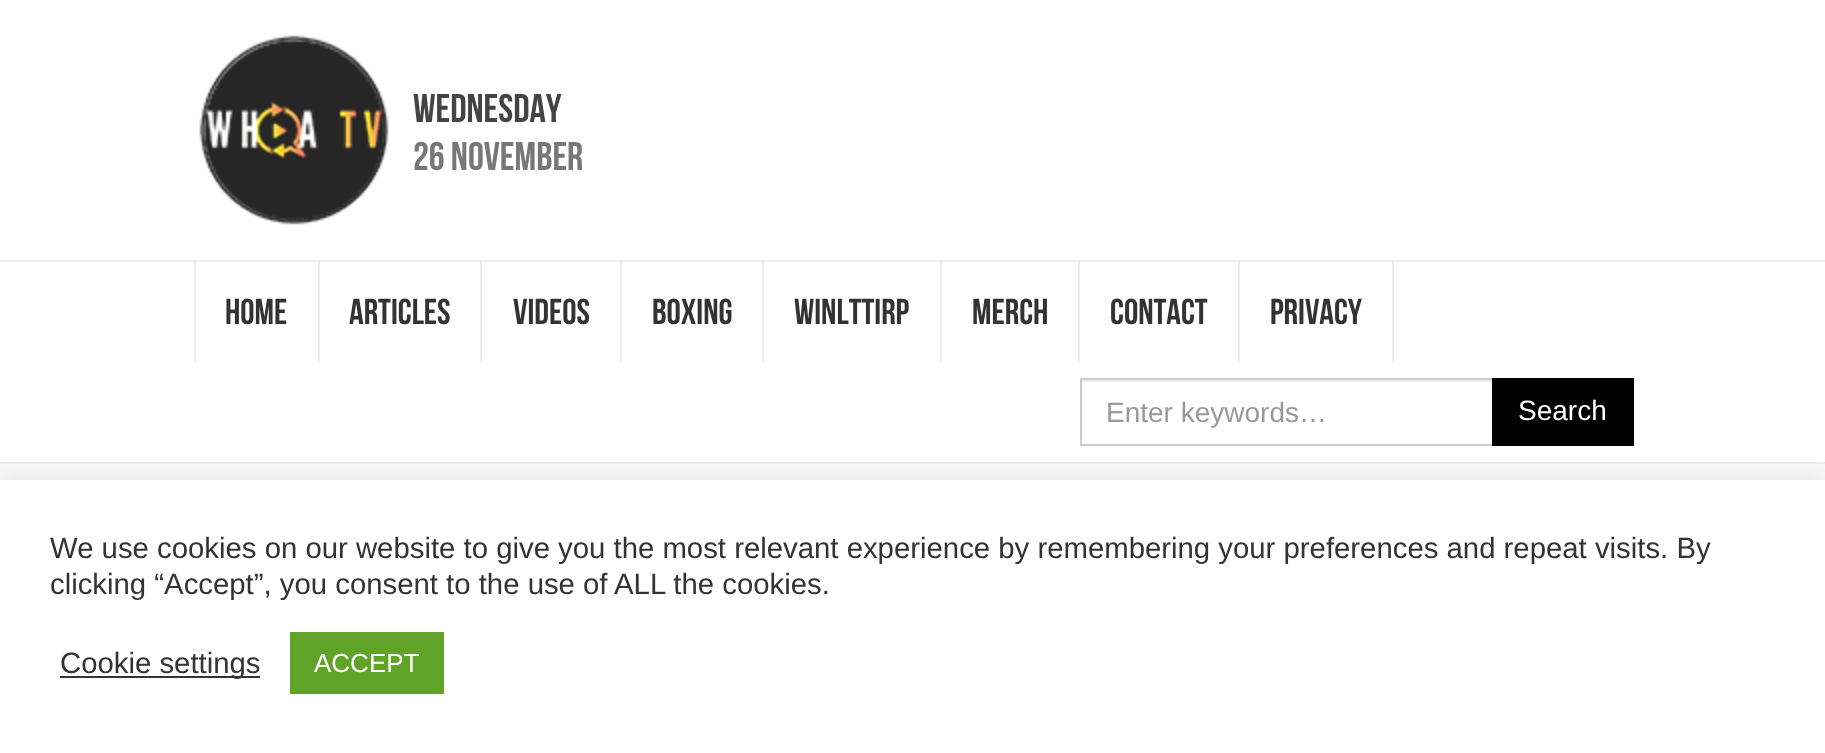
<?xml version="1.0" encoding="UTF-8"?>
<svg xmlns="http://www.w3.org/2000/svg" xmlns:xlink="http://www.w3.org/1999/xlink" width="1825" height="753">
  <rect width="100%" height="100%" fill="#fafafa" />
  <rect width="1825" height="260" fill="#ffffff" />
  <image x="199" y="35" width="190" height="190" xlink:href="image1.png" />
  <rect y="262" width="1825" height="200" fill="#ffffff" />
  <rect y="260" width="1825" height="2" fill="#eeeeee" />
  <rect y="462" width="1825" height="2" fill="#eeeeee" />
  <rect x="194" y="262" width="2" height="100" fill="#eeeeee" />
  <rect x="318" y="262" width="2" height="100" fill="#eeeeee" />
  <rect x="480" y="262" width="2" height="100" fill="#eeeeee" />
  <rect x="620" y="262" width="2" height="100" fill="#eeeeee" />
  <rect x="762" y="262" width="2" height="100" fill="#eeeeee" />
  <rect x="940" y="262" width="2" height="100" fill="#eeeeee" />
  <rect x="1078" y="262" width="2" height="100" fill="#eeeeee" />
  <rect x="1238" y="262" width="2" height="100" fill="#eeeeee" />
  <rect x="1392" y="262" width="2" height="100" fill="#eeeeee" />
  <rect x="1082" y="380" width="410" height="2" fill="#ececec" />
  <rect x="1081" y="379" width="412" height="66" fill="none" stroke="#cccccc" stroke-width="2" />
  <rect x="1492" y="378" width="142" height="68" fill="#000000" />
  <rect y="478" width="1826" height="274" fill="#acabab" fill-opacity="0.3" filter="blur(10px)" />
  <rect y="480" width="1825" height="273" fill="#ffffff" />
  <rect x="60" y="676" width="200" height="2" fill="#333333" />
  <rect x="290" y="632" width="154" height="62" fill="#61a229" />
  <text x="413" y="122" style="font-family: Bebas Neue; font-size: 40px; fill: #444444">WEDNESDAY</text>
  <text x="413" y="170" style="font-family: Bebas Neue; font-size: 40px; fill: #777777">26 NOVEMBER</text>
  <text x="225" y="324" style="font-family: Bebas Neue; font-size: 36px; fill: #333333">HOME</text>
  <text x="349" y="324" style="font-family: Bebas Neue; font-size: 36px; fill: #333333">ARTICLES</text>
  <text x="513" y="324" style="font-family: Bebas Neue; font-size: 36px; fill: #333333">VIDEOS</text>
  <text x="652" y="324" style="font-family: Bebas Neue; font-size: 36px; fill: #333333">BOXING</text>
  <text x="794" y="324" style="font-family: Bebas Neue; font-size: 36px; fill: #333333">WINLTTIRP</text>
  <text x="972" y="324" style="font-family: Bebas Neue; font-size: 36px; fill: #333333">MERCH</text>
  <text x="1110" y="324" style="font-family: Bebas Neue; font-size: 36px; fill: #333333">CONTACT</text>
  <text x="1270" y="324" style="font-family: Bebas Neue; font-size: 36px; fill: #333333">PRIVACY</text>
  <text x="1106" y="422" style="font-family: Liberation Sans; font-size: 28px; fill: #999999">Enter keywords…</text>
  <text x="1518" y="420" style="font-family: Liberation Sans; font-size: 28px; fill: #ffffff">Search</text>
  <text x="50" y="558" style="font-family: Liberation Sans; font-size: 29.33px; fill: #333333">We use cookies on our website to give you the most relevant experience by remembering your preferences and repeat visits. By</text>
  <text x="50" y="594" style="font-family: Liberation Sans; font-size: 29.33px; fill: #333333">clicking “Accept”, you consent to the use of ALL the cookies.</text>
  <text x="60" y="673" style="font-family: Liberation Sans; font-size: 29.33px; fill: #333333">Cookie settings</text>
  <text x="314" y="672" style="font-family: Liberation Sans; font-size: 26px; fill: #ffffff">ACCEPT</text>
</svg>
